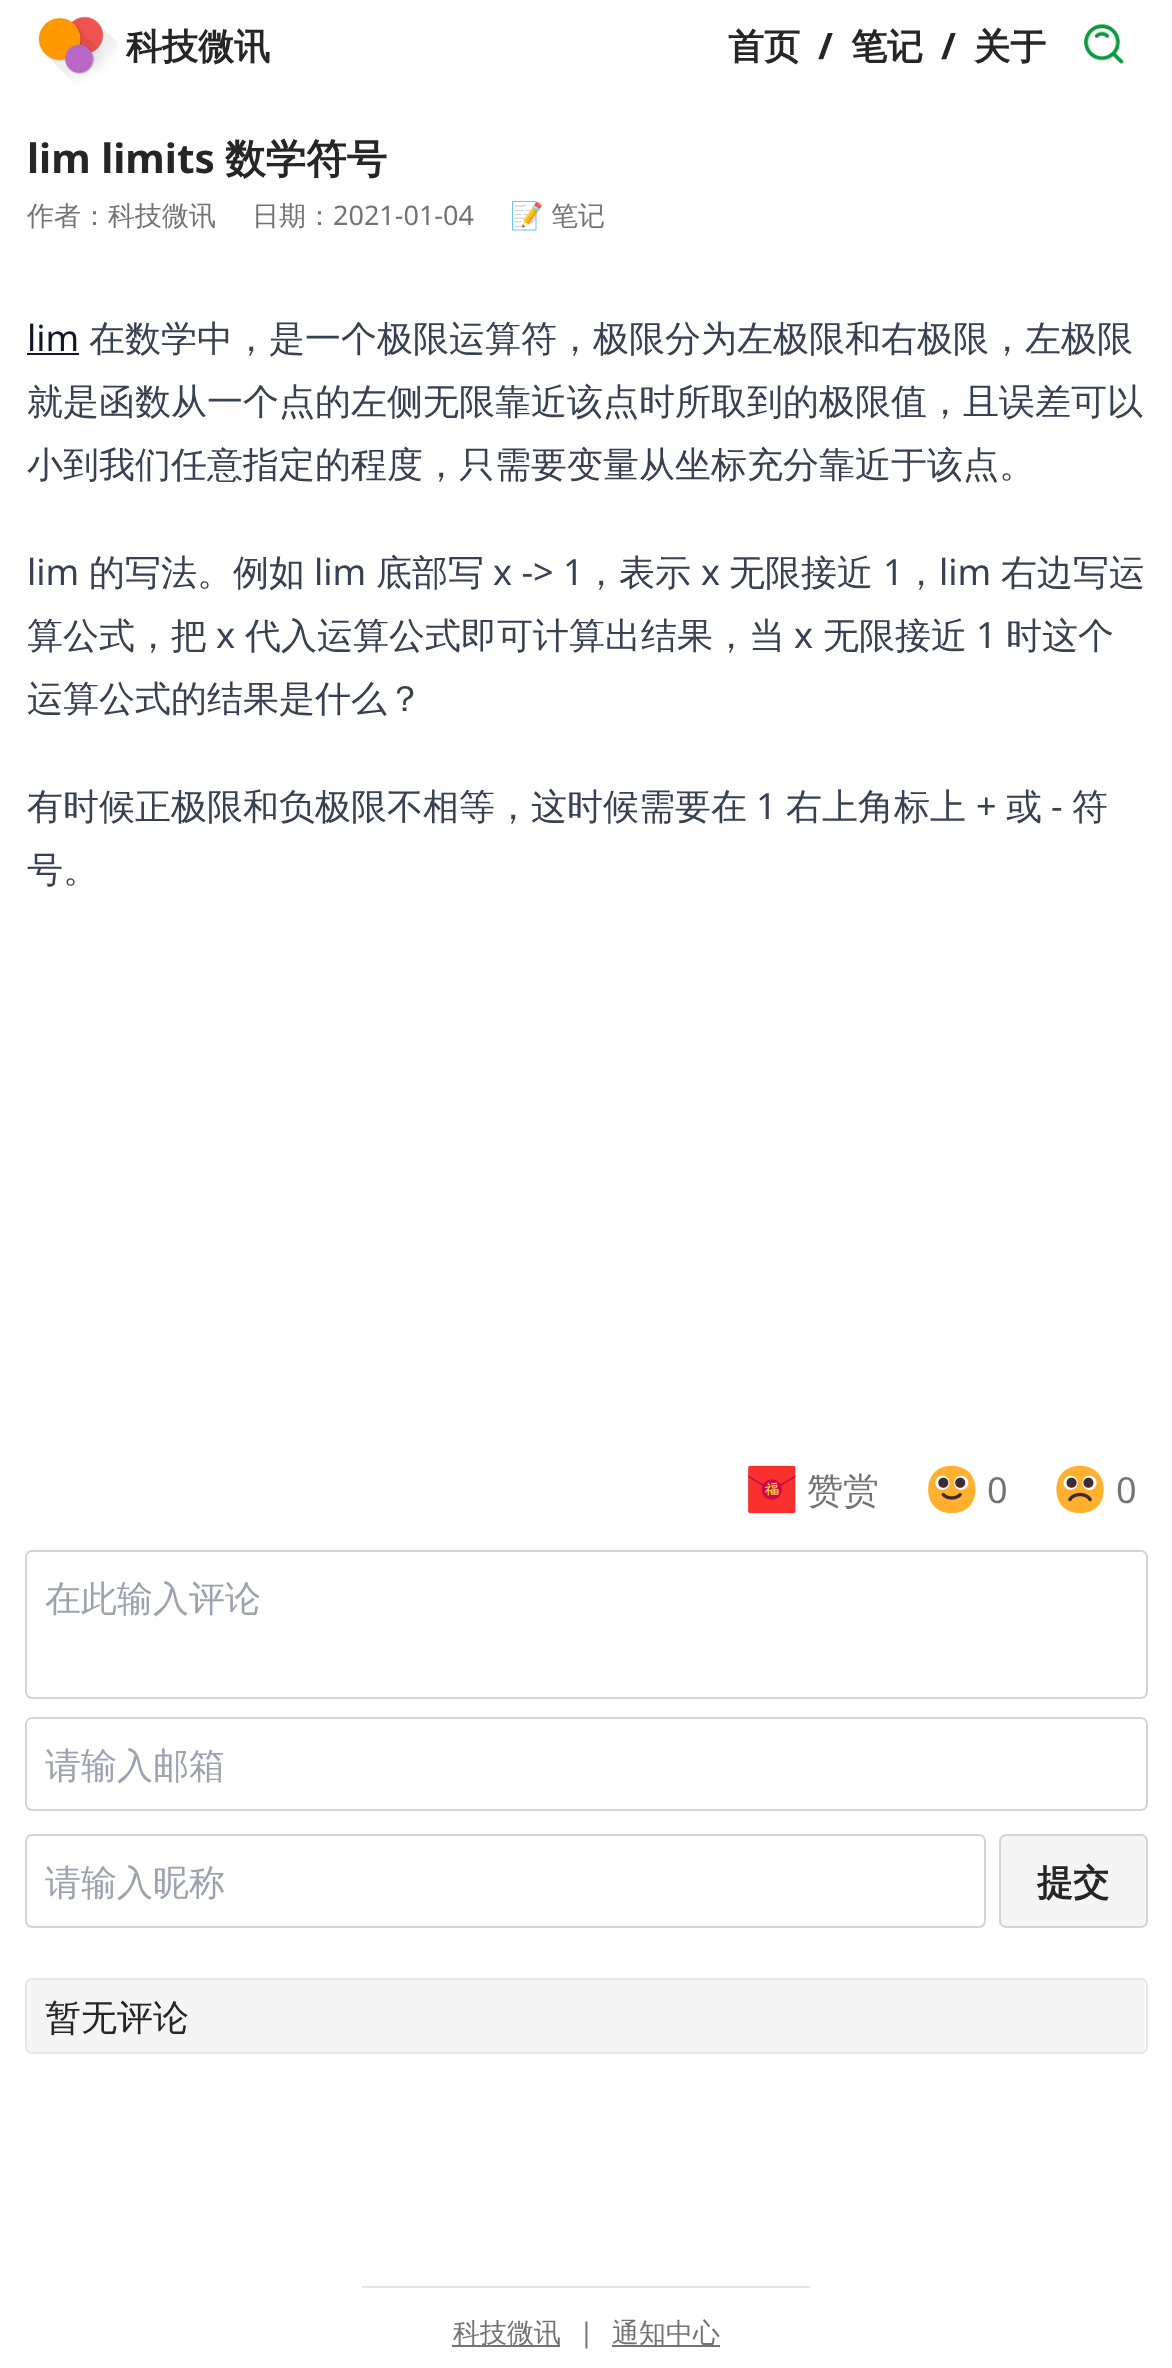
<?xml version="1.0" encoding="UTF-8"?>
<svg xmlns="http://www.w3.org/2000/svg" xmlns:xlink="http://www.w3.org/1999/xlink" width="1172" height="2368">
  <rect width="100%" height="100%" fill="#ffffff" />
  <image x="36" y="14" width="81" height="71" xlink:href="image1.png" />
  <image x="1084" y="24" width="40" height="40" xlink:href="image2.png" />
  <rect x="27" y="353" width="52" height="2" fill="#111827" />
  <image x="748" y="1465" width="48" height="49" xlink:href="image3.png" />
  <image x="928" y="1465" width="48" height="49" xlink:href="image4.png" />
  <image x="1056" y="1465" width="48" height="49" xlink:href="image5.png" />
  <rect x="26" y="1551" width="1121" height="147" rx="6" fill="none" stroke="#d4d4d4" stroke-width="2" />
  <rect x="26" y="1718" width="1121" height="92" rx="6" fill="none" stroke="#d4d4d4" stroke-width="2" />
  <rect x="26" y="1835" width="959" height="92" rx="6" fill="none" stroke="#d4d4d4" stroke-width="2" />
  <rect x="1001" y="1836" width="144" height="90" rx="5" fill="#f5f5f5" />
  <rect x="1000" y="1835" width="147" height="92" rx="6" fill="none" stroke="#d4d4d4" stroke-width="2" />
  <rect x="27" y="1980" width="1118" height="72" rx="5" fill="#f5f5f5" />
  <rect x="26" y="1979" width="1121" height="74" rx="6" fill="none" stroke="#e5e5e5" stroke-width="2" />
  <rect x="362" y="2286" width="448" height="2" fill="#e5e5e5" />
  <rect x="452" y="2345" width="108" height="2" fill="#737373" />
  <rect x="612" y="2345" width="108" height="2" fill="#737373" />
  <text x="126" y="59" style="font-family: WenQuanYi Zen Hei; font-size: 36px; font-weight: bold; fill: #262626">科技微讯</text>
  <text x="728" y="59" style="font-family: WenQuanYi Zen Hei; font-size: 36px; font-weight: bold; fill: #262626">首页</text>
  <text x="818" y="59" style="font-family: Noto Sans; font-size: 36px; font-weight: bold; fill: #262626">/</text>
  <text x="851" y="59" style="font-family: WenQuanYi Zen Hei; font-size: 36px; font-weight: bold; fill: #262626">笔记</text>
  <text x="941" y="59" style="font-family: Noto Sans; font-size: 36px; font-weight: bold; fill: #262626">/</text>
  <text x="974" y="59" style="font-family: WenQuanYi Zen Hei; font-size: 36px; font-weight: bold; fill: #262626">关于</text>
  <text x="27" y="173" style="font-family: Noto Sans; font-size: 40.5px; font-weight: bold; fill: #262626">lim limits</text>
  <text x="225" y="173" style="font-family: WenQuanYi Zen Hei; font-size: 40.5px; font-weight: bold; fill: #262626">数学符号</text>
  <text x="27" y="225" style="font-family: WenQuanYi Zen Hei; font-size: 27px; font-weight: 500; fill: #737373">作者：科技微讯</text>
  <text x="252" y="225" style="font-family: WenQuanYi Zen Hei; font-size: 27px; font-weight: 500; fill: #737373">日期：</text>
  <text x="333" y="225" style="font-family: Noto Sans; font-size: 27px; fill: #737373">2021-01-04</text>
  <text x="510" y="225" style="font-family: Noto Color Emoji; font-size: 27px; fill: #737373">📝</text>
  <text x="551" y="225" style="font-family: WenQuanYi Zen Hei; font-size: 27px; font-weight: 500; fill: #737373">笔记</text>
  <text x="27" y="351" style="font-family: Noto Sans; font-size: 36px; fill: #111827">lim</text>
  <text x="89" y="351" style="font-family: WenQuanYi Zen Hei; font-size: 36px; font-weight: 500; fill: #374151">在数学中，是一个极限运算符，极限分为左极限和右极限，左极限</text>
  <text x="27" y="414" style="font-family: WenQuanYi Zen Hei; font-size: 36px; font-weight: 500; fill: #374151">就是函数从一个点的左侧无限靠近该点时所取到的极限值，且误差可以</text>
  <text x="27" y="477" style="font-family: WenQuanYi Zen Hei; font-size: 36px; font-weight: 500; fill: #374151">小到我们任意指定的程度，只需要变量从坐标充分靠近于该点。</text>
  <text x="27" y="585" style="font-family: Noto Sans; font-size: 36px; fill: #374151">lim</text>
  <text x="89" y="585" style="font-family: WenQuanYi Zen Hei; font-size: 36px; font-weight: 500; fill: #374151">的写法。例如</text>
  <text x="314" y="585" style="font-family: Noto Sans; font-size: 36px; fill: #374151">lim</text>
  <text x="376" y="585" style="font-family: WenQuanYi Zen Hei; font-size: 36px; font-weight: 500; fill: #374151">底部写</text>
  <text x="493" y="585" style="font-family: Noto Sans; font-size: 36px; fill: #374151">x -&gt; 1</text>
  <text x="583" y="585" style="font-family: WenQuanYi Zen Hei; font-size: 36px; font-weight: 500; fill: #374151">，表示</text>
  <text x="701" y="585" style="font-family: Noto Sans; font-size: 36px; fill: #374151">x</text>
  <text x="729" y="585" style="font-family: WenQuanYi Zen Hei; font-size: 36px; font-weight: 500; fill: #374151">无限接近</text>
  <text x="883" y="585" style="font-family: Noto Sans; font-size: 36px; fill: #374151">1</text>
  <text x="903" y="585" style="font-family: WenQuanYi Zen Hei; font-size: 36px; font-weight: 500; fill: #374151">，</text>
  <text x="939" y="585" style="font-family: Noto Sans; font-size: 36px; fill: #374151">lim</text>
  <text x="1001" y="585" style="font-family: WenQuanYi Zen Hei; font-size: 36px; font-weight: 500; fill: #374151">右边写运</text>
  <text x="27" y="648" style="font-family: WenQuanYi Zen Hei; font-size: 36px; font-weight: 500; fill: #374151">算公式，把</text>
  <text x="216" y="648" style="font-family: Noto Sans; font-size: 36px; fill: #374151">x</text>
  <text x="245" y="648" style="font-family: WenQuanYi Zen Hei; font-size: 36px; font-weight: 500; fill: #374151">代入运算公式即可计算出结果，当</text>
  <text x="794" y="648" style="font-family: Noto Sans; font-size: 36px; fill: #374151">x</text>
  <text x="823" y="648" style="font-family: WenQuanYi Zen Hei; font-size: 36px; font-weight: 500; fill: #374151">无限接近</text>
  <text x="976" y="648" style="font-family: Noto Sans; font-size: 36px; fill: #374151">1</text>
  <text x="1006" y="648" style="font-family: WenQuanYi Zen Hei; font-size: 36px; font-weight: 500; fill: #374151">时这个</text>
  <text x="27" y="711" style="font-family: WenQuanYi Zen Hei; font-size: 36px; font-weight: 500; fill: #374151">运算公式的结果是什么？</text>
  <text x="27" y="819" style="font-family: WenQuanYi Zen Hei; font-size: 36px; font-weight: 500; fill: #374151">有时候正极限和负极限不相等，这时候需要在</text>
  <text x="756" y="819" style="font-family: Noto Sans; font-size: 36px; fill: #374151">1</text>
  <text x="786" y="819" style="font-family: WenQuanYi Zen Hei; font-size: 36px; font-weight: 500; fill: #374151">右上角标上</text>
  <text x="976" y="819" style="font-family: Noto Sans; font-size: 36px; fill: #374151">+</text>
  <text x="1006" y="819" style="font-family: WenQuanYi Zen Hei; font-size: 36px; font-weight: 500; fill: #374151">或</text>
  <text x="1051" y="819" style="font-family: Noto Sans; font-size: 36px; fill: #374151">-</text>
  <text x="1072" y="819" style="font-family: WenQuanYi Zen Hei; font-size: 36px; font-weight: 500; fill: #374151">符</text>
  <text x="27" y="882" style="font-family: WenQuanYi Zen Hei; font-size: 36px; font-weight: 500; fill: #374151">号。</text>
  <text x="807" y="1503" style="font-family: WenQuanYi Zen Hei; font-size: 36px; font-weight: 500; fill: #737373">赞赏</text>
  <text x="987" y="1503" style="font-family: Noto Sans; font-size: 36px; fill: #737373">0</text>
  <text x="1116" y="1503" style="font-family: Noto Sans; font-size: 36px; fill: #737373">0</text>
  <text x="45" y="1611" style="font-family: WenQuanYi Zen Hei; font-size: 36px; font-weight: 500; fill: #9ca3af">在此输入评论</text>
  <text x="45" y="1778" style="font-family: WenQuanYi Zen Hei; font-size: 36px; font-weight: 500; fill: #9ca3af">请输入邮箱</text>
  <text x="45" y="1895" style="font-family: WenQuanYi Zen Hei; font-size: 36px; font-weight: 500; fill: #9ca3af">请输入昵称</text>
  <text x="1037" y="1895" style="font-family: WenQuanYi Zen Hei; font-size: 36px; font-weight: bold; fill: #262626">提交</text>
  <text x="45" y="2030" style="font-family: WenQuanYi Zen Hei; font-size: 36px; font-weight: 500; fill: #262626">暂无评论</text>
  <text x="453" y="2342" style="font-family: WenQuanYi Zen Hei; font-size: 27px; font-weight: 500; fill: #737373">科技微讯</text>
  <text x="579" y="2342" style="font-family: Noto Sans; font-size: 27px; fill: #737373">|</text>
  <text x="612" y="2342" style="font-family: WenQuanYi Zen Hei; font-size: 27px; font-weight: 500; fill: #737373">通知中心</text>
</svg>
